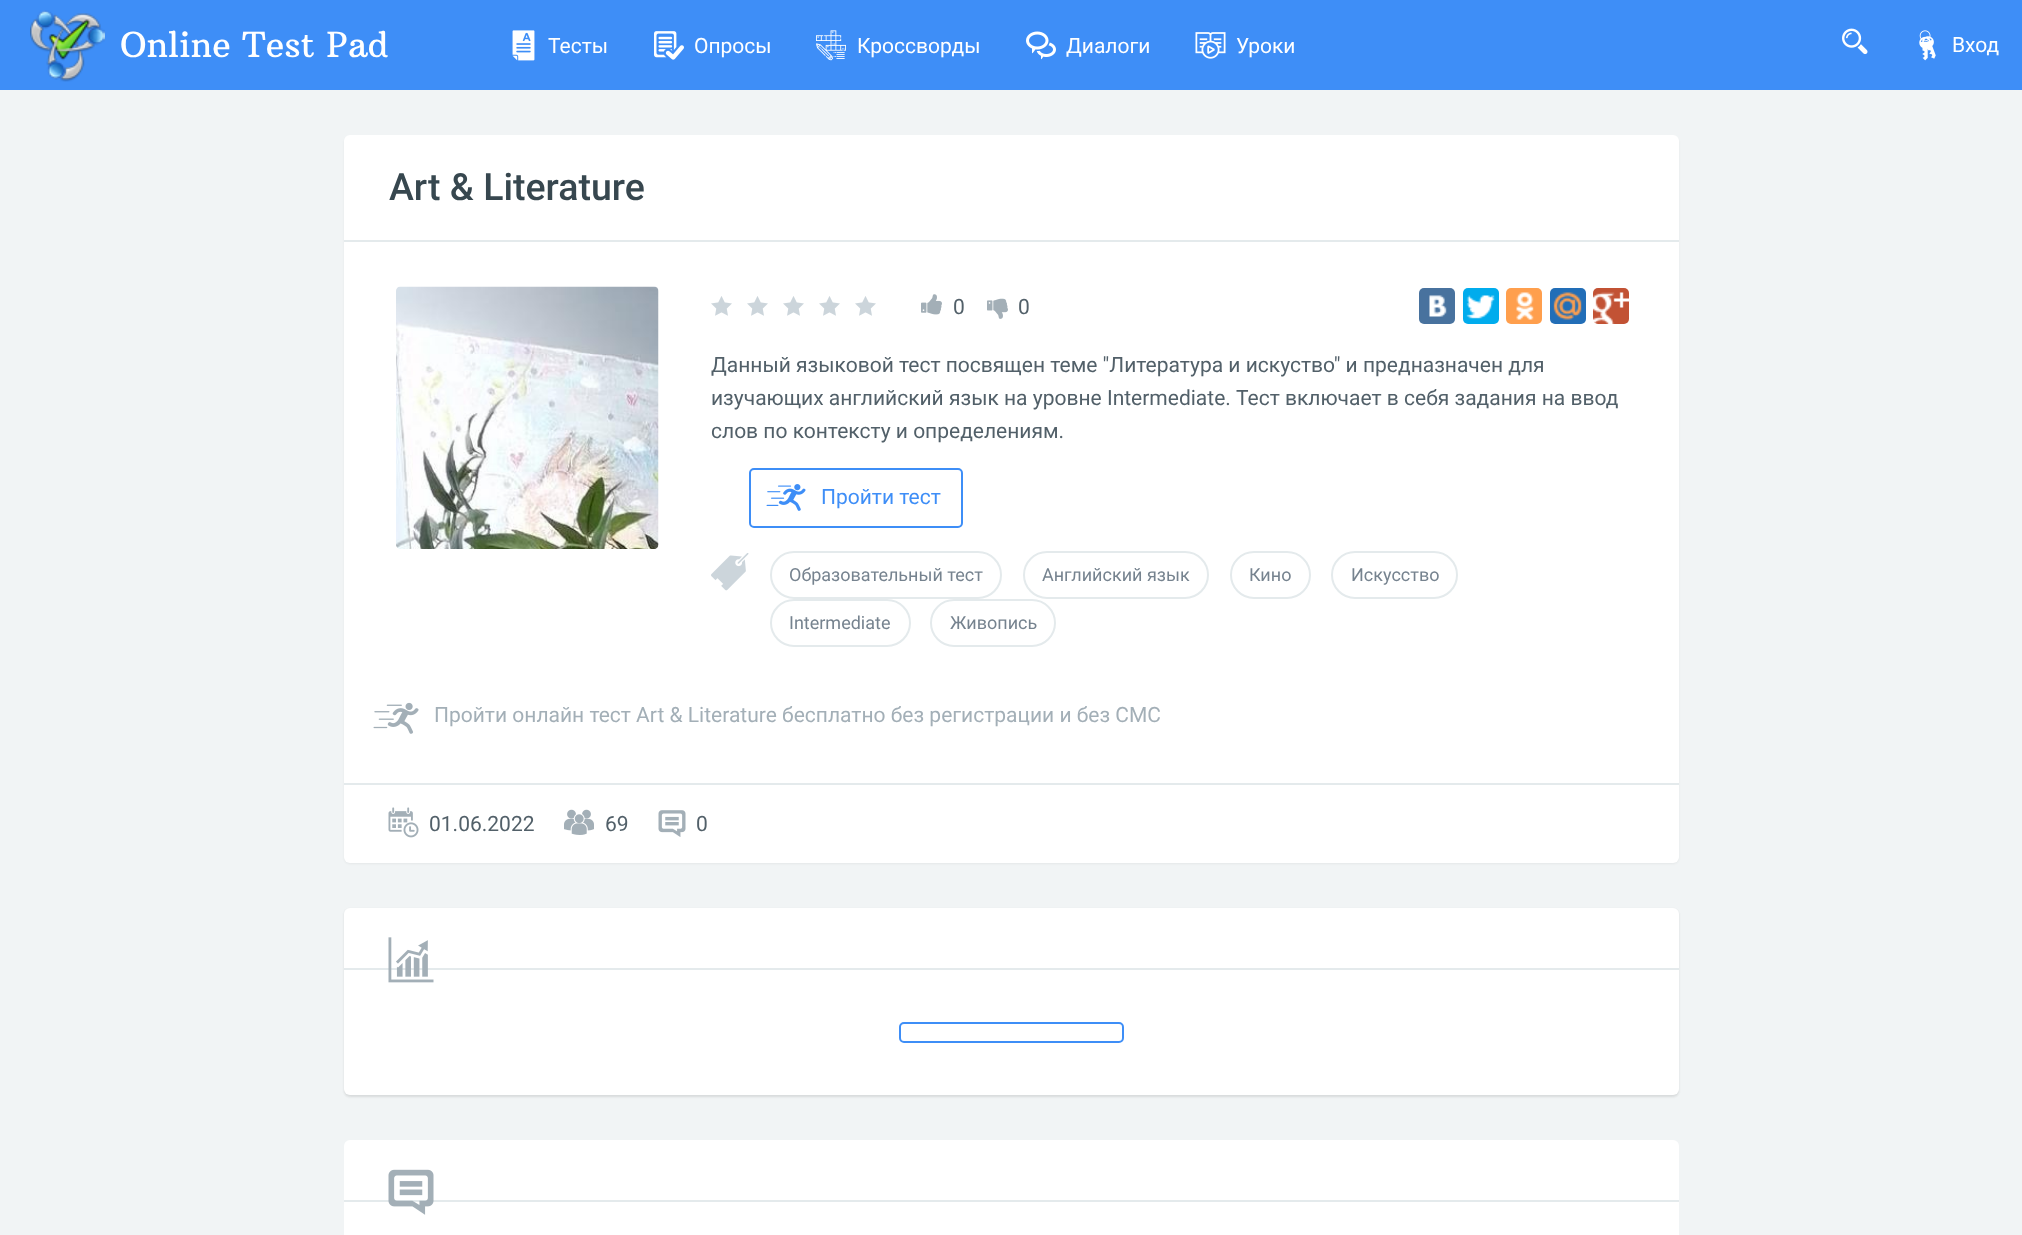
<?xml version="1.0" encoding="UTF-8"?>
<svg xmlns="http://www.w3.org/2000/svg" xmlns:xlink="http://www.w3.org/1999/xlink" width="2022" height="1235">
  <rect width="100%" height="100%" fill="#3e8ef7" />
  <image x="30" y="10" width="75" height="72" xlink:href="image1.png" />
  <image x="512" y="30" width="23" height="31" xlink:href="image2.png" />
  <image x="654" y="31" width="30" height="29" xlink:href="image3.png" />
  <image x="816" y="30" width="30" height="31" xlink:href="image4.png" />
  <image x="1026" y="31" width="30" height="29" xlink:href="image5.png" />
  <image x="1195" y="32" width="31" height="27" xlink:href="image6.png" />
  <image x="1842" y="28" width="26" height="27" xlink:href="image7.png" />
  <image x="1919" y="30" width="17" height="31" xlink:href="image8.png" />
  <rect y="90" width="2022" height="1145" fill="#f1f4f5" />
  <rect x="344" y="137" width="1335" height="727" rx="6" fill="#000000" fill-opacity="0.05" filter="blur(1px)" />
  <rect x="344" y="135" width="1335" height="728" rx="6" fill="#ffffff" />
  <rect x="344" y="240" width="1335" height="2" fill="#e4eaec" />
  <image x="396" y="286" width="263" height="263" xlink:href="image9.png" />
  <image x="711" y="296" width="21" height="20" xlink:href="image10.png" />
  <image x="747" y="296" width="21" height="20" xlink:href="image10.png" />
  <image x="783" y="296" width="21" height="20" xlink:href="image10.png" />
  <image x="819" y="296" width="21" height="20" xlink:href="image10.png" />
  <image x="855" y="296" width="21" height="20" xlink:href="image10.png" />
  <image x="921" y="294" width="21" height="21" xlink:href="image11.png" />
  <image x="987" y="298" width="21" height="21" xlink:href="image12.png" />
  <rect x="1419" y="288" width="36" height="36" rx="5" fill="#48729e" />
  <image x="1429" y="295" width="18" height="22" xlink:href="image13.png" />
  <rect x="1463" y="288" width="36" height="36" rx="5" fill="#00aced" />
  <image x="1466" y="295" width="29" height="24" xlink:href="image14.png" />
  <rect x="1506" y="288" width="36" height="36" rx="5" fill="#ff9f4d" />
  <image x="1516" y="292" width="18" height="28" xlink:href="image15.png" />
  <rect x="1550" y="288" width="36" height="36" rx="5" fill="#226eb7" />
  <image x="1553" y="292" width="29" height="28" xlink:href="image16.png" />
  <rect x="1593" y="288" width="36" height="36" rx="5" fill="#c25234" />
  <image x="1593" y="292" width="36" height="32" xlink:href="image17.png" />
  <rect x="750" y="469" width="212" height="58" rx="4" fill="none" stroke="#3e8ef7" stroke-width="2" />
  <image x="766" y="484" width="40" height="27" xlink:href="image18.png" />
  <image x="711" y="553" width="38" height="38" xlink:href="image19.png" />
  <rect x="771" y="552" width="230" height="46" rx="23" fill="none" stroke="#e4eaec" stroke-width="2" />
  <rect x="1024" y="552" width="184" height="46" rx="23" fill="none" stroke="#e4eaec" stroke-width="2" />
  <rect x="1231" y="552" width="79" height="46" rx="23" fill="none" stroke="#e4eaec" stroke-width="2" />
  <rect x="1332" y="552" width="125" height="46" rx="23" fill="none" stroke="#e4eaec" stroke-width="2" />
  <rect x="771" y="600" width="139" height="46" rx="23" fill="none" stroke="#e4eaec" stroke-width="2" />
  <rect x="931" y="600" width="124" height="46" rx="23" fill="none" stroke="#e4eaec" stroke-width="2" />
  <image x="373" y="702" width="46" height="32" xlink:href="image20.png" />
  <rect x="344" y="783" width="1335" height="2" fill="#e4eaec" />
  <image x="388" y="807" width="31" height="31" xlink:href="image21.png" />
  <image x="564" y="809" width="30" height="26" xlink:href="image22.png" />
  <image x="658" y="810" width="28" height="27" xlink:href="image23.png" />
  <rect x="344" y="909" width="1335" height="188" rx="6" fill="#000000" fill-opacity="0.05" filter="blur(1px)" />
  <rect x="344" y="909" width="1335" height="188" rx="6" fill="#000000" fill-opacity="0.05" filter="blur(1px)" />
  <rect x="344" y="908" width="1335" height="187" rx="6" fill="#ffffff" />
  <rect x="344" y="968" width="1335" height="2" fill="#e4eaec" />
  <image x="388" y="937" width="46" height="46" xlink:href="image24.png" />
  <rect x="900" y="1023" width="223" height="19" rx="4" fill="none" stroke="#3e8ef7" stroke-width="2" />
  <rect x="344" y="1140" width="1335" height="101" rx="6" fill="#ffffff" />
  <rect x="344" y="1200" width="1335" height="2" fill="#e4eaec" />
  <image x="388" y="1169" width="46" height="46" xlink:href="image25.png" />
  <text x="120" y="57" style="font-family: Arbutus Slab; font-size: 34.5px; fill: #ffffff">Online Test Pad</text>
  <text x="548" y="53" style="font-family: Roboto; font-size: 21px; fill: #ffffff">Тесты</text>
  <text x="694" y="53" style="font-family: Roboto; font-size: 21px; fill: #ffffff">Опросы</text>
  <text x="857" y="53" style="font-family: Roboto; font-size: 21px; fill: #ffffff">Кроссворды</text>
  <text x="1066" y="53" style="font-family: Roboto; font-size: 21px; fill: #ffffff">Диалоги</text>
  <text x="1236" y="53" style="font-family: Roboto; font-size: 21px; fill: #ffffff">Уроки</text>
  <text x="1952" y="52" style="font-family: Roboto; font-size: 21px; fill: #ffffff">Вход</text>
  <text x="389" y="200" style="font-family: Roboto; font-size: 37.5px; font-weight: 500; fill: #37474f">Art &amp; Literature</text>
  <text x="953" y="314" style="font-family: Roboto; font-size: 21px; fill: #526069">0</text>
  <text x="1018" y="314" style="font-family: Roboto; font-size: 21px; fill: #526069">0</text>
  <text x="711" y="372" style="font-family: Roboto; font-size: 21px; fill: #526069">Данный языковой тест посвящен теме "Литература и искуство" и предназначен для</text>
  <text x="711" y="405" style="font-family: Roboto; font-size: 21px; fill: #526069">изучающих английский язык на уровне Intermediate. Тест включает в себя задания на ввод</text>
  <text x="711" y="438" style="font-family: Roboto; font-size: 21px; fill: #526069">слов по контексту и определениям.</text>
  <text x="821" y="504" style="font-family: Roboto; font-size: 21px; fill: #3e8ef7">Пройти тест</text>
  <text x="789" y="581" style="font-family: Roboto; font-size: 18px; fill: #76838f">Образовательный тест</text>
  <text x="1042" y="581" style="font-family: Roboto; font-size: 18px; fill: #76838f">Английский язык</text>
  <text x="1249" y="581" style="font-family: Roboto; font-size: 18px; fill: #76838f">Кино</text>
  <text x="1351" y="581" style="font-family: Roboto; font-size: 18px; fill: #76838f">Искусство</text>
  <text x="789" y="629" style="font-family: Roboto; font-size: 18px; fill: #76838f">Intermediate</text>
  <text x="950" y="629" style="font-family: Roboto; font-size: 18px; fill: #76838f">Живопись</text>
  <text x="434" y="722" style="font-family: Roboto; font-size: 21px; fill: #a3afb7">Пройти онлайн тест Art &amp; Literature бесплатно без регистрации и без СМС</text>
  <text x="429" y="831" style="font-family: Roboto; font-size: 21px; fill: #526069">01.06.2022</text>
  <text x="605" y="831" style="font-family: Roboto; font-size: 21px; fill: #526069">69</text>
  <text x="696" y="831" style="font-family: Roboto; font-size: 21px; fill: #526069">0</text>
</svg>
